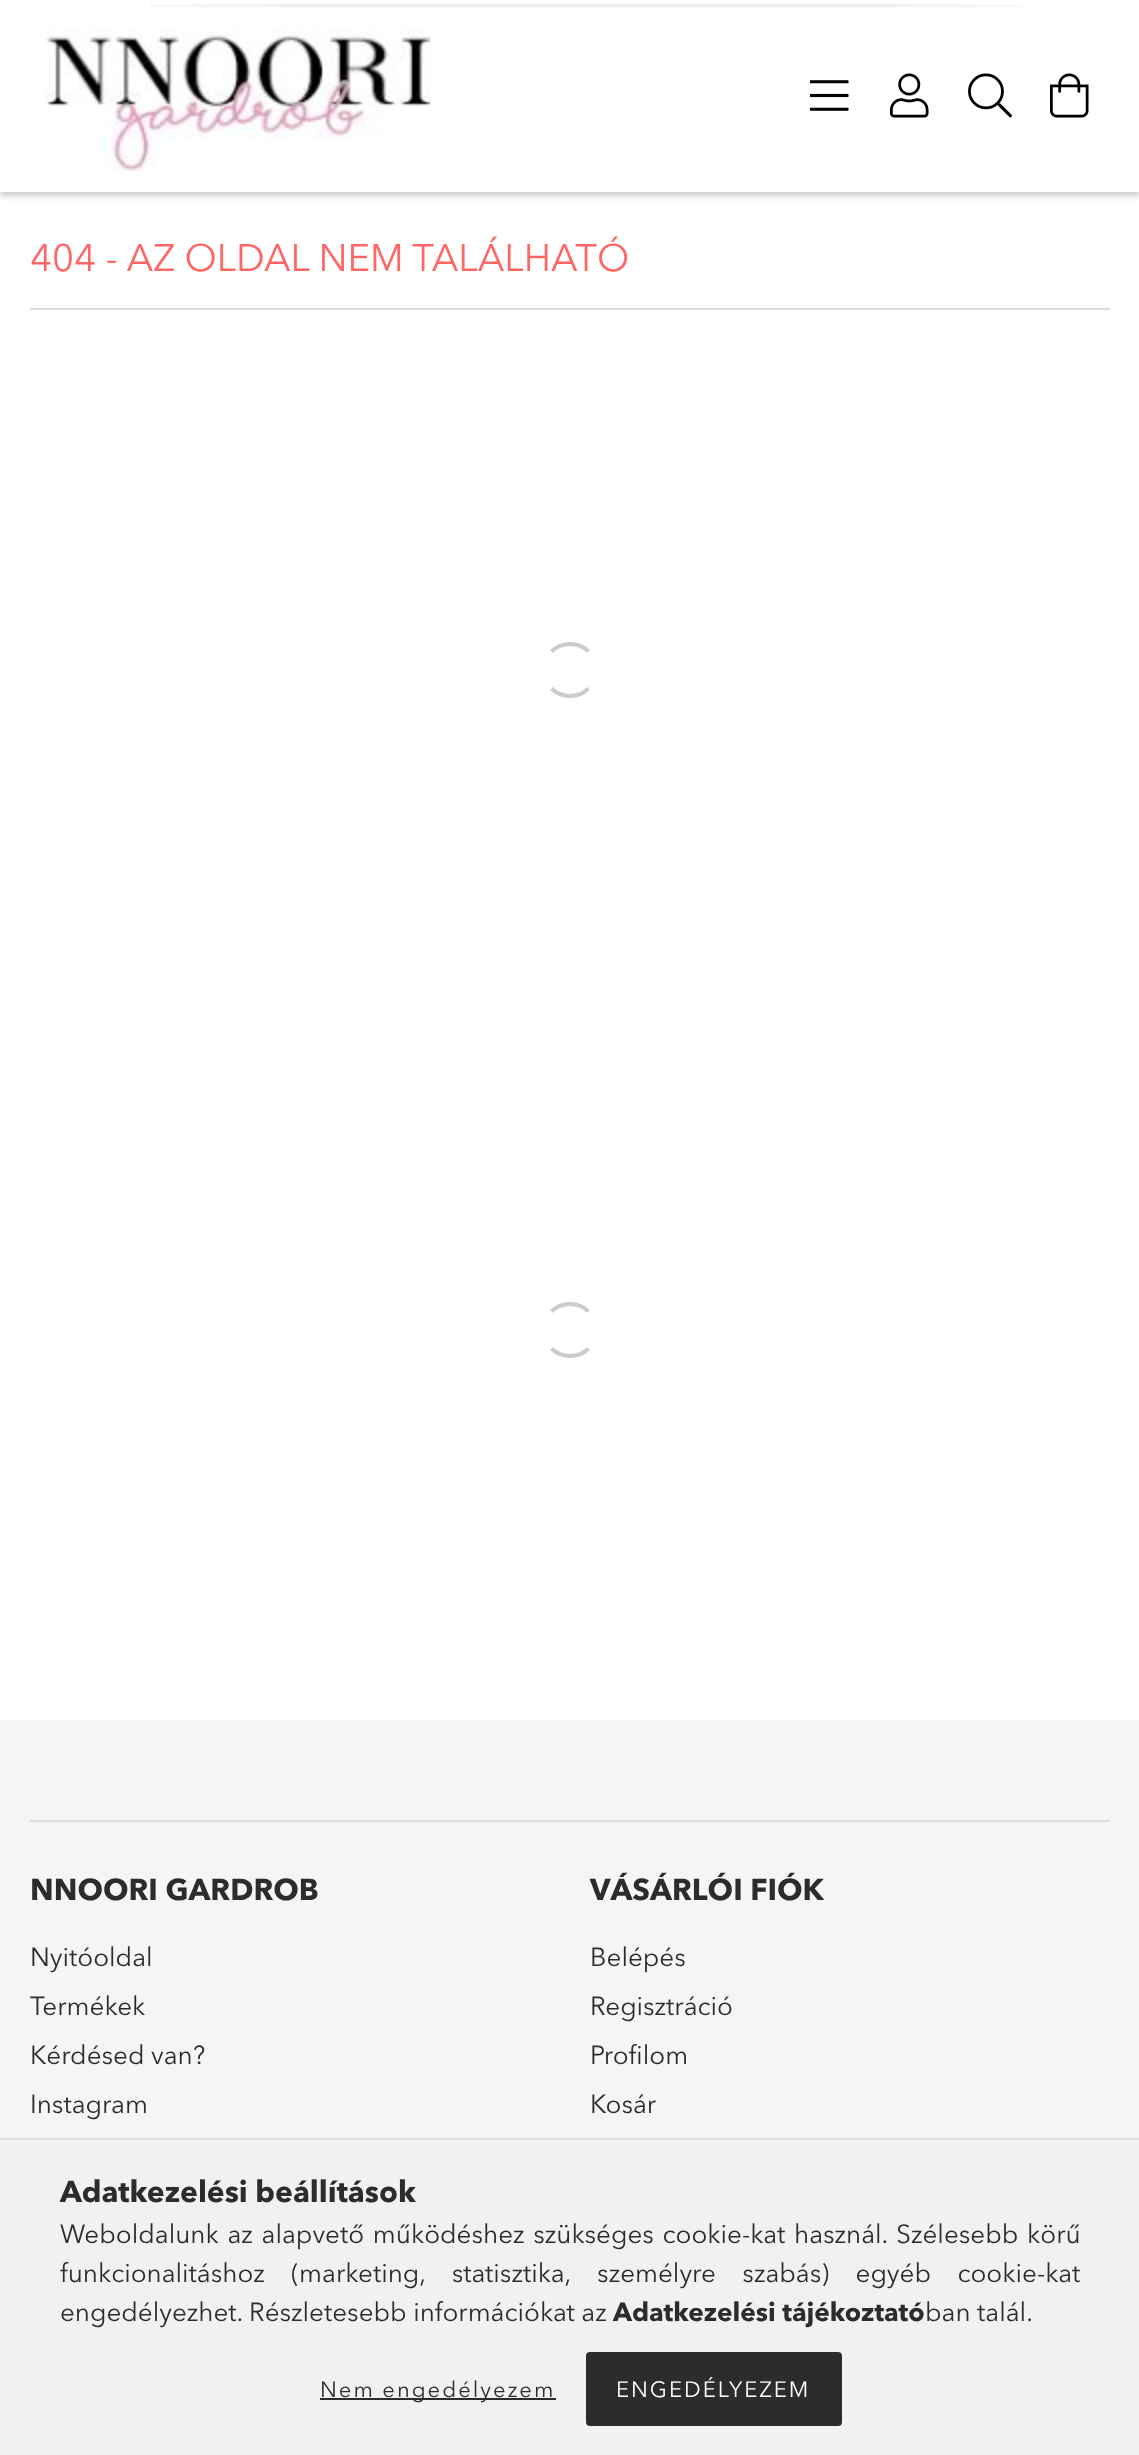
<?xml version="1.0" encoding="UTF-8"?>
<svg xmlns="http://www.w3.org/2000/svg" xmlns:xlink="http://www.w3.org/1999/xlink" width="1139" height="2455">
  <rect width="100%" height="100%" fill="#ffffff" />
  <rect y="4" width="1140" height="192" fill="#000000" fill-opacity="0.2" filter="blur(3px)" />
  <rect width="1139" height="192" fill="#ffffff" />
  <image x="149" y="4" width="873" height="4" xlink:href="image1.png" />
  <image x="45" y="28" width="386" height="144" xlink:href="image2.png" />
  <image x="810" y="80" width="39" height="31" xlink:href="image3.png" />
  <image x="890" y="73" width="39" height="45" xlink:href="image4.png" />
  <image x="968" y="73" width="45" height="45" xlink:href="image5.png" />
  <image x="1050" y="73" width="39" height="45" xlink:href="image6.png" />
  <rect x="30" y="308" width="1080" height="2" fill="#dddddd" />
  <path d="M 551.5 651.5 c 10 -10 27 -10 37 0 m 0 37 c -10 10 -27 10 -37 0" fill="none" stroke="#cccccc" stroke-width="4" />
  <path d="M 551.5 1311.5 c 10 -10 27 -10 37 0 m 0 37 c -10 10 -27 10 -37 0" fill="none" stroke="#cccccc" stroke-width="4" />
  <rect y="1720" width="1139" height="418" fill="#f5f5f5" />
  <rect x="30" y="1820" width="1080" height="2" fill="#dddddd" />
  <rect y="2140" width="1139" height="315" fill="#f1f1f1" />
  <rect y="2138" width="1139" height="2" fill="#dddddd" />
  <rect x="320" y="2398" width="236" height="2" fill="#2c2c2c" />
  <rect x="587" y="2353" width="254" height="72" rx="3" fill="#2c2c2c" stroke="#2c2c2c" stroke-width="2" />
  <text x="30" y="271" style="font-family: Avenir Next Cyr; font-size: 38px; fill: #ff6666">404 - AZ OLDAL NEM TALÁLHATÓ</text>
  <text x="30" y="1900" style="font-family: Avenir Next Cyr; font-size: 30px; font-weight: bold; fill: #2c2c2c">NNOORI GARDROB</text>
  <text x="30" y="1966" style="font-family: Avenir Next Cyr; font-size: 26px; fill: #2c2c2c">Nyitóoldal</text>
  <text x="30" y="2015" style="font-family: Avenir Next Cyr; font-size: 26px; fill: #2c2c2c">Termékek</text>
  <text x="30" y="2064" style="font-family: Avenir Next Cyr; font-size: 26px; fill: #2c2c2c">Kérdésed van?</text>
  <text x="30" y="2113" style="font-family: Avenir Next Cyr; font-size: 26px; fill: #2c2c2c">Instagram</text>
  <text x="590" y="1900" style="font-family: Avenir Next Cyr; font-size: 30px; font-weight: bold; fill: #2c2c2c">VÁSÁRLÓI FIÓK</text>
  <text x="590" y="1966" style="font-family: Avenir Next Cyr; font-size: 26px; fill: #2c2c2c">Belépés</text>
  <text x="590" y="2015" style="font-family: Avenir Next Cyr; font-size: 26px; fill: #2c2c2c">Regisztráció</text>
  <text x="590" y="2064" style="font-family: Avenir Next Cyr; font-size: 26px; fill: #2c2c2c">Profilom</text>
  <text x="590" y="2113" style="font-family: Avenir Next Cyr; font-size: 26px; fill: #2c2c2c">Kosár</text>
  <text x="60" y="2202" style="font-family: Avenir Next Cyr; font-size: 30px; font-weight: bold; fill: #2c2c2c">Adatkezelési beállítások</text>
  <text x="60" y="2243" word-spacing="2.25" style="font-family: Avenir Next Cyr; font-size: 26px; fill: #2c2c2c">Weboldalunk az alapvető működéshez szükséges cookie-kat használ. Szélesebb körű</text>
  <text x="60" y="2282" word-spacing="20" style="font-family: Avenir Next Cyr; font-size: 26px; fill: #2c2c2c">funkcionalitáshoz (marketing, statisztika, személyre szabás) egyéb cookie-kat</text>
  <text x="60" y="2321" style="font-family: Avenir Next Cyr; font-size: 26px; fill: #2c2c2c">engedélyezhet. Részletesebb információkat az</text>
  <text x="613" y="2321" style="font-family: Avenir Next Cyr; font-size: 26px; font-weight: bold; fill: #2c2c2c">Adatkezelési tájékoztató</text>
  <text x="925" y="2321" style="font-family: Avenir Next Cyr; font-size: 26px; fill: #2c2c2c">ban talál.</text>
  <text x="320" y="2397" style="font-family: Avenir Next Cyr; font-size: 22px; letter-spacing: 2px; fill: #2c2c2c">Nem engedélyezem</text>
  <text x="616" y="2397" style="font-family: Avenir Next Cyr; font-size: 22px; letter-spacing: 2px; fill: #ffffff">ENGEDÉLYEZEM</text>
</svg>
